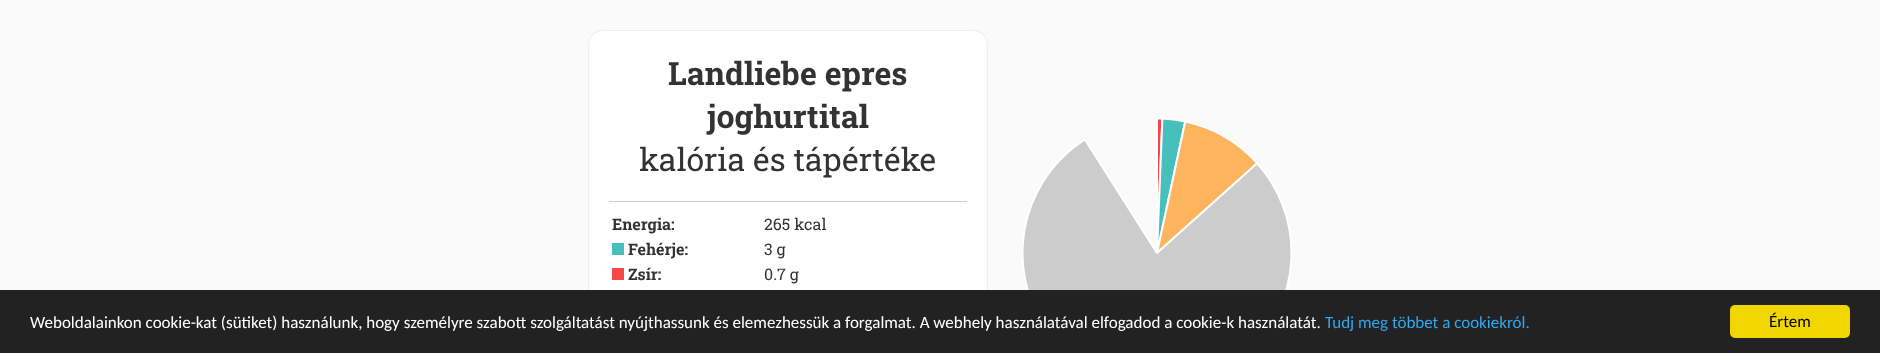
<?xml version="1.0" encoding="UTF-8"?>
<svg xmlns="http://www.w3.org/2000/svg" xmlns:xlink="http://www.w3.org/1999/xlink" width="1880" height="353">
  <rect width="100%" height="100%" fill="#fafafa" />
  <rect x="588.5" y="30.5" width="399" height="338" rx="14.5" fill="#ffffff" stroke="#eeeeee" />
  <rect x="609" y="201" width="358" height="1" fill="#cccccc" />
  <rect x="612" y="243" width="12" height="12" fill="#46bfbd" />
  <rect x="612" y="268" width="12" height="12" fill="#f7464a" />
  <image x="1022" y="118" width="270" height="172" xlink:href="image1.png" />
  <rect y="290" width="1880" height="63" fill="#222222" />
  <rect x="1730" y="305" width="120" height="33" rx="5" fill="#f1d600" />
  <text x="668" y="85" style="font-family: Roboto Slab; font-size: 32px; font-weight: bold; fill: #333333">Landliebe epres</text>
  <text x="707" y="128" style="font-family: Roboto Slab; font-size: 32px; font-weight: bold; fill: #333333">joghurtital</text>
  <text x="639" y="171" style="font-family: Roboto Slab; font-size: 32px; fill: #333333">kalória és tápértéke</text>
  <text x="612" y="230" style="font-family: Roboto Slab; font-size: 16px; font-weight: bold; fill: #333333">Energia:</text>
  <text x="764" y="230" style="font-family: Roboto Slab; font-size: 16px; fill: #333333">265 kcal</text>
  <text x="628" y="255" style="font-family: Roboto Slab; font-size: 16px; font-weight: bold; fill: #333333">Fehérje:</text>
  <text x="764" y="255" style="font-family: Roboto Slab; font-size: 16px; fill: #333333">3 g</text>
  <text x="628" y="280" style="font-family: Roboto Slab; font-size: 16px; font-weight: bold; fill: #333333">Zsír:</text>
  <text x="764" y="280" style="font-family: Roboto Slab; font-size: 16px; fill: #333333">0.7 g</text>
  <text x="30" y="328" style="font-family: Carlito; font-size: 17px; fill: #ffffff">Weboldalainkon cookie-kat (sütiket) használunk, hogy személyre szabott szolgáltatást nyújthassunk és elemezhessük a forgalmat. A webhely használatával elfogadod a cookie-k használatát.</text>
  <text x="1325" y="328" style="font-family: Carlito; font-size: 17px; fill: #31a8f0">Tudj meg többet a cookiekról.</text>
  <text x="1769" y="327" style="font-family: Carlito; font-size: 17px; fill: #000000">Értem</text>
</svg>
